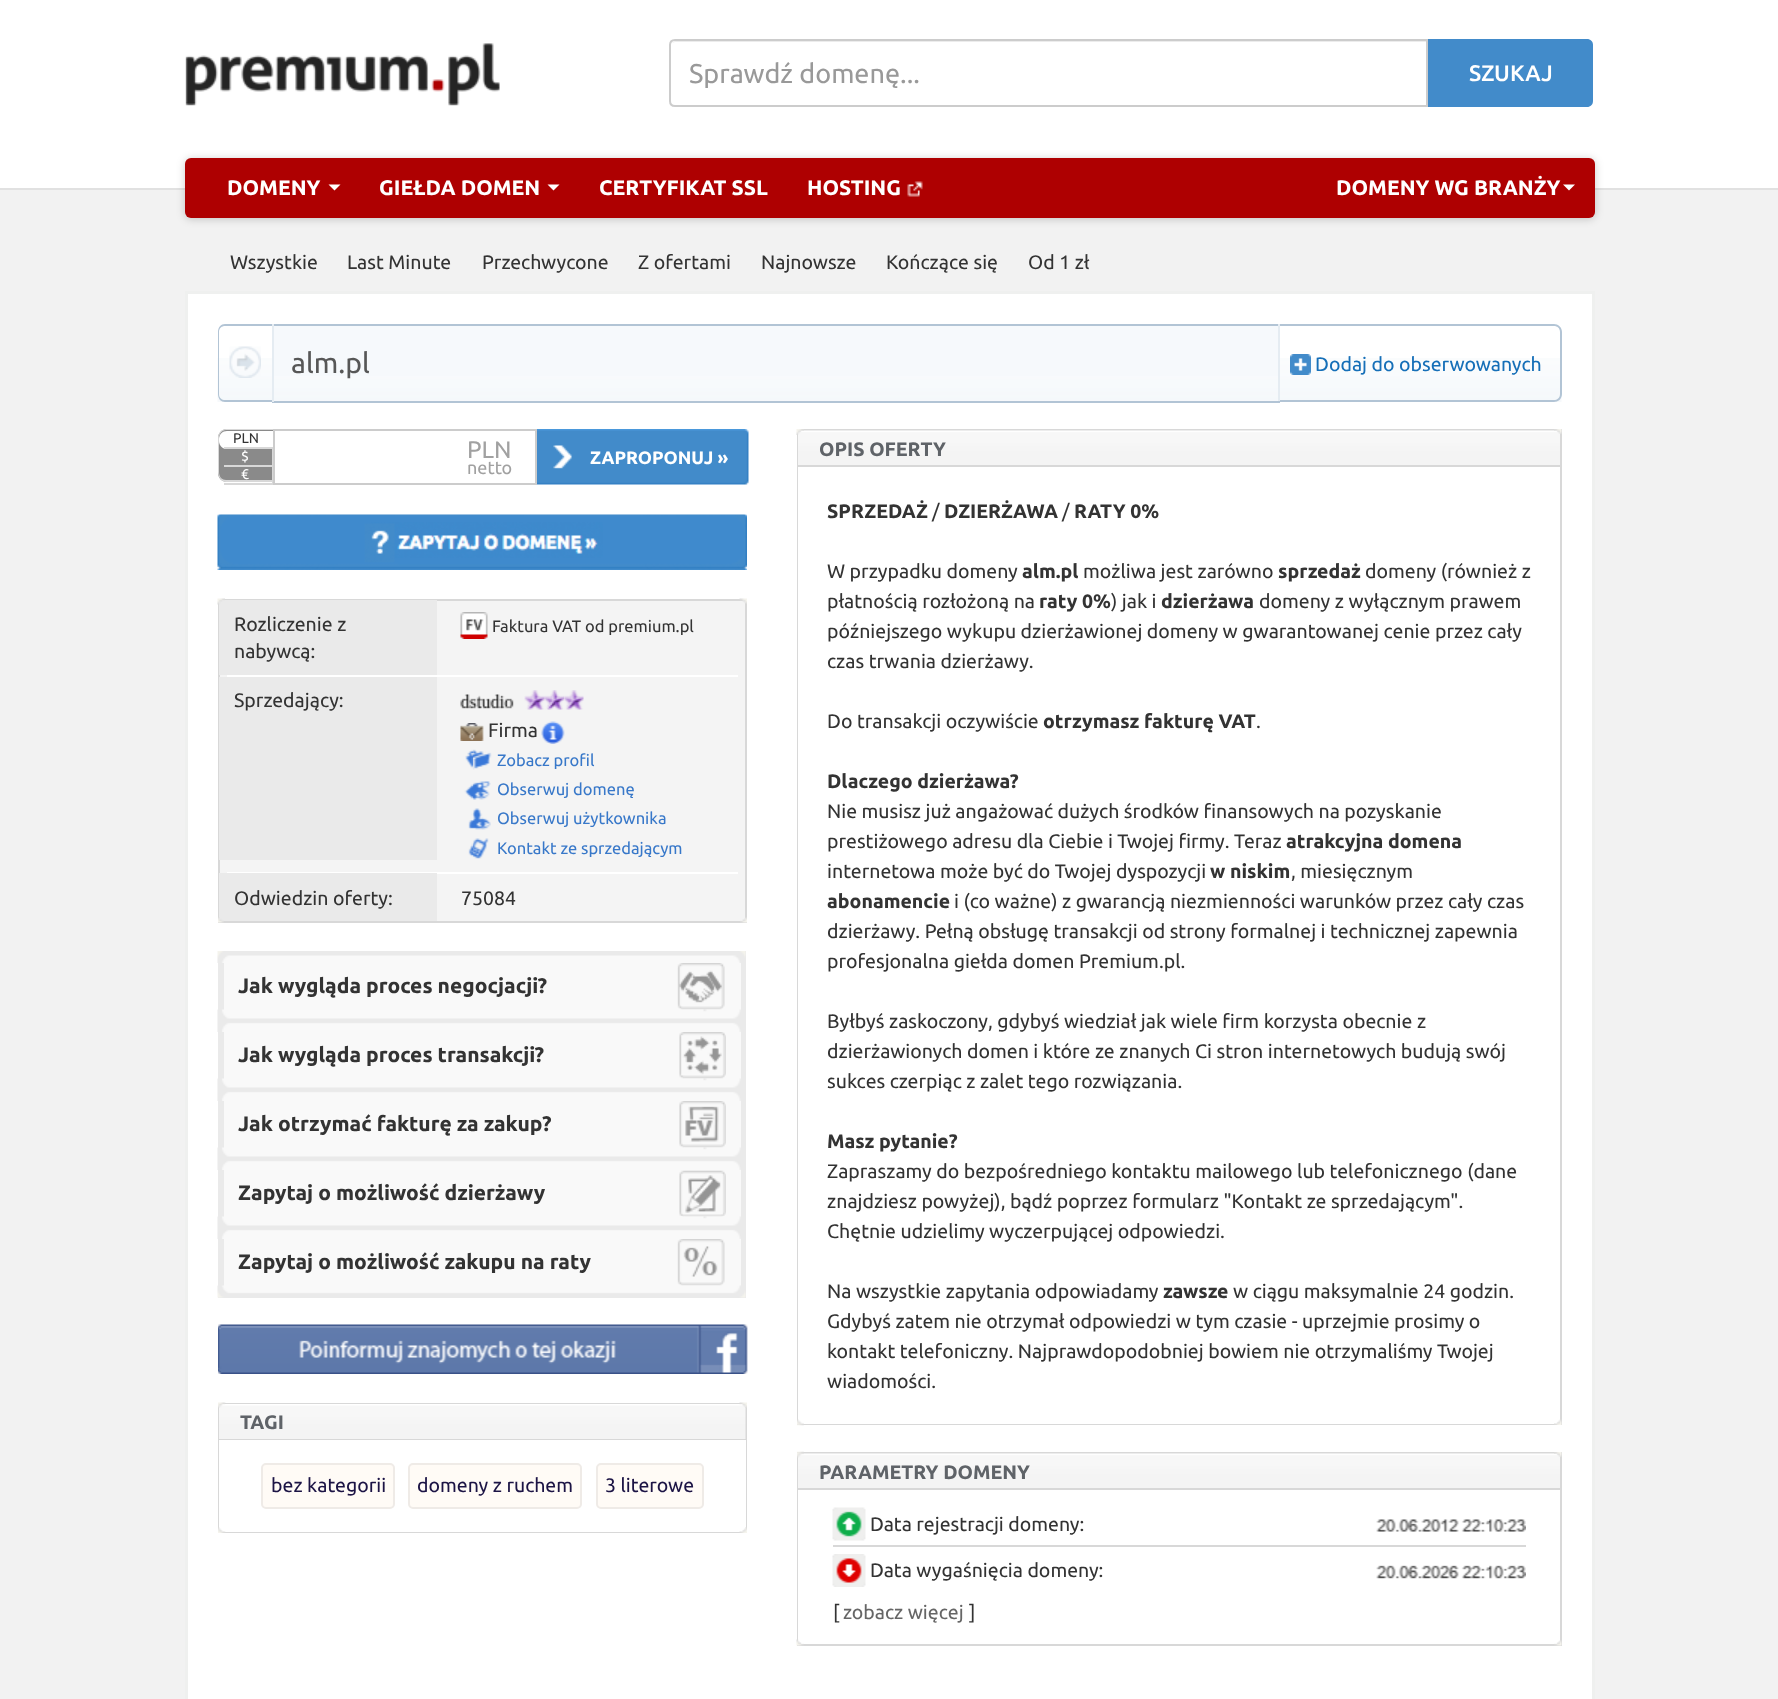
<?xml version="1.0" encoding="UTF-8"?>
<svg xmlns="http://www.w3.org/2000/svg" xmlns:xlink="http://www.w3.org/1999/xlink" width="1778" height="1699">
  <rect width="100%" height="100%" fill="#ffffff" />
  <image x="185" y="43" width="315" height="63" xlink:href="image1.png" />
  <path d="M 675 42 h 751 v 63 h 1 v -64 h -751 c -2 0 -3 1 -4 2 z" fill="#ececec" />
  <path d="M 675 40 h 752 v 66 h -752 c -3 0 -5 -2 -5 -5 v -56 c 0 -3 2 -5 5 -5 z" fill="none" stroke="#cccccc" stroke-width="2" />
  <path d="M 1428 39 h 159 c 3.5 0 6 2.5 6 6 v 56 c 0 3.5 -2.5 6 -6 6 h -159 z" fill="#428bca" />
  <rect y="190" width="1778" height="1509" fill="#f2f2f2" />
  <rect y="188" width="1778" height="2" fill="#e1e1e1" />
  <rect x="185" y="159" width="1410" height="60" rx="6" fill="#000000" fill-opacity="0.2" filter="blur(4px)" />
  <rect x="185" y="158" width="1410" height="60" rx="6" fill="#ae0001" />
  <path d="M 328.5 184.5 h 12 l -6 6 z" fill="#ffffff" />
  <path d="M 547.5 184.5 h 12 l -6 6 z" fill="#ffffff" />
  <image x="907" y="181" width="16" height="16" xlink:href="image2.png" />
  <path d="M 1563 184.5 h 12 l -6 6 z" fill="#ffffff" />
  <rect x="186.5" y="292.5" width="1407" height="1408" fill="#ffffff" stroke="#eff0ef" stroke-width="3" />
  <image x="217" y="358" width="1345" height="44" xlink:href="image3.png" />
  <image x="229" y="346" width="32" height="32" xlink:href="image4.png" />
  <path d="M 225 324 h 47 v 78 h -47 c -4 0 -7 -3 -7 -8 v -62 c 0 -5 3 -8 7 -8 z m 0 2 h 47 v 74 h -47 c -3 0 -6 -2 -6 -6 v -62 c 0 -4 3 -6 6 -6 z" fill="#b2c4d5" fill-rule="evenodd" />
  <rect x="274" y="326" width="1004" height="50" fill="#f6f9fc" />
  <rect x="272" y="324" width="1008" height="2" fill="#b2c4d5" />
  <rect x="1278" y="324" width="2" height="78" fill="#e5ecf2" />
  <rect x="272" y="401" width="1008" height="2" fill="#b2c4d5" />
  <rect x="272" y="324" width="2" height="78" fill="#e5ecf2" />
  <path d="M 1280 324 h 274 c 4 0 8 3 8 8 v 62 c 0 5 -4 8 -8 8 h -274 z m 0 2 h 274 c 3 0 6 2 6 6 v 62 c 0 4 -3 6 -6 6 h -274 z" fill="#b2c4d5" fill-rule="evenodd" />
  <image x="1290" y="354" width="21" height="21" xlink:href="image5.png" />
  <path d="M 227 429 h 46 v 53 h -46 c -5 0 -9 -4 -9 -9 v -35 c 0 -5 4 -9 9 -9 z" fill="#8a8a8a" />
  <path d="M 226 429 h 47 v 53 h -47 c -4 0 -8 -5 -8 -10 v -34 c 0 -5 4 -9 8 -9 z m 0 1 h 47 v 50 h -47 c -4 0 -7 -3 -7 -8 v -34 c 0 -4 3 -8 7 -8 z" fill="#d8d8d8" fill-rule="evenodd" />
  <path d="M 227 431 h 46 v 18 h -46 c -4.5 0 -8 -3.5 -8 -8 v -2 c 0 -4.5 3.5 -8 8 -8 z" fill="#ffffff" />
  <rect x="224" y="447" width="49" height="2" fill="#d8d8d8" />
  <rect x="272" y="449" width="1" height="36" fill="#d8d8d8" />
  <rect x="224" y="465" width="49" height="2" fill="#d8d8d8" />
  <rect x="224" y="483" width="49" height="2" fill="#d8d8d8" />
  <rect x="274" y="430" width="262" height="54" fill="none" stroke="#cccccc" stroke-width="2" />
  <image x="537" y="429" width="212" height="56" xlink:href="image6.png" />
  <image x="217" y="514" width="530" height="56" xlink:href="image7.png" />
  <rect x="219" y="600" width="527" height="322" fill="#f4f4f4" stroke="#d8d8d8" stroke-width="2" />
  <rect x="219" y="600" width="218" height="75" fill="#eaeaea" />
  <image x="217" y="598" width="8" height="7" xlink:href="image8.png" />
  <image x="739" y="598" width="8" height="6" xlink:href="image9.png" />
  <image x="460" y="612" width="28" height="27" xlink:href="image10.png" />
  <rect x="227" y="675" width="511" height="2" fill="#ffffff" />
  <rect x="219" y="677" width="218" height="183" fill="#eaeaea" />
  <image x="460" y="694" width="54" height="15" xlink:href="image11.png" />
  <image x="524" y="690" width="21" height="20" xlink:href="image12.png" />
  <image x="544" y="690" width="20" height="20" xlink:href="image13.png" />
  <image x="563" y="690" width="21" height="20" xlink:href="image14.png" />
  <image x="460" y="723" width="24" height="18" xlink:href="image15.png" />
  <image x="541" y="721" width="24" height="23" xlink:href="image16.png" />
  <image x="465" y="749" width="27" height="21" xlink:href="image17.png" />
  <image x="464" y="781" width="27" height="19" xlink:href="image18.png" />
  <image x="468" y="808" width="23" height="22" xlink:href="image19.png" />
  <image x="468" y="838" width="21" height="21" xlink:href="image20.png" />
  <rect x="227" y="872" width="511" height="2" fill="#ffffff" />
  <rect x="219" y="873" width="218" height="48" fill="#eaeaea" />
  <image x="218" y="917" width="6" height="6" xlink:href="image21.png" />
  <image x="740" y="917" width="7" height="6" xlink:href="image22.png" />
  <rect x="218" y="951" width="528" height="347" fill="#eaeaea" />
  <image x="217" y="951" width="529" height="12" xlink:href="image23.png" />
  <rect x="224" y="963" width="517" height="47" fill="#f9f9f9" />
  <image x="677" y="963" width="48" height="47" xlink:href="image24.png" />
  <image x="217" y="1009" width="524" height="23" xlink:href="image25.png" />
  <rect x="224" y="1032" width="517" height="47" fill="#f9f9f9" />
  <image x="679" y="1032" width="47" height="47" xlink:href="image26.png" />
  <image x="217" y="1078" width="524" height="23" xlink:href="image27.png" />
  <rect x="224" y="1101" width="517" height="47" fill="#f9f9f9" />
  <image x="679" y="1101" width="47" height="47" xlink:href="image28.png" />
  <image x="217" y="1147" width="524" height="23" xlink:href="image29.png" />
  <rect x="224" y="1170" width="517" height="47" fill="#f9f9f9" />
  <image x="679" y="1170" width="47" height="47" xlink:href="image30.png" />
  <image x="217" y="1216" width="524" height="23" xlink:href="image29.png" />
  <rect x="224" y="1239" width="517" height="47" fill="#f9f9f9" />
  <image x="677" y="1239" width="48" height="47" xlink:href="image31.png" />
  <image x="217" y="1285" width="529" height="13" xlink:href="image32.png" />
  <image x="218" y="1324" width="530" height="50" xlink:href="image33.png" />
  <rect x="219" y="1404" width="527" height="128" fill="none" stroke="#d8d8d8" stroke-width="2" />
  <image x="219" y="1404" width="527" height="35" xlink:href="image36.png" />
  <image x="218" y="1402" width="8" height="6" xlink:href="image34.png" />
  <image x="739" y="1402" width="8" height="6" xlink:href="image35.png" />
  <rect x="219" y="1439" width="527" height="1" fill="#d8d8d8" />
  <rect x="219" y="1440" width="527" height="92" fill="#ffffff" />
  <rect x="262" y="1464" width="132" height="44" rx="4" fill="#fffbf6" stroke="#efebe7" stroke-width="2" />
  <rect x="409" y="1464" width="172" height="44" rx="4" fill="#fffbf6" stroke="#efebe7" stroke-width="2" />
  <rect x="597" y="1464" width="106" height="44" rx="4" fill="#fffbf6" stroke="#efebe7" stroke-width="2" />
  <image x="218" y="1527" width="8" height="6" xlink:href="image37.png" />
  <image x="739" y="1527" width="8" height="6" xlink:href="image38.png" />
  <rect x="798" y="430" width="763" height="994" fill="none" stroke="#d8d8d8" stroke-width="2" />
  <image x="798" y="430" width="762" height="35" xlink:href="image41.png" />
  <image x="796" y="429" width="8" height="6" xlink:href="image39.png" />
  <image x="1554" y="429" width="8" height="5" xlink:href="image40.png" />
  <rect x="798" y="465" width="762" height="2" fill="#d8d8d8" />
  <rect x="798" y="467" width="762" height="957" fill="#ffffff" />
  <image x="797" y="1419" width="7" height="7" xlink:href="image42.png" />
  <image x="1554" y="1419" width="8" height="6" xlink:href="image43.png" />
  <rect x="798" y="1453" width="763" height="192" fill="none" stroke="#d8d8d8" stroke-width="2" />
  <image x="798" y="1453" width="762" height="35" xlink:href="image41.png" />
  <image x="797" y="1451" width="7" height="7" xlink:href="image44.png" />
  <image x="1554" y="1452" width="8" height="5" xlink:href="image40.png" />
  <rect x="798" y="1488" width="762" height="2" fill="#d8d8d8" />
  <rect x="798" y="1490" width="1" height="154" fill="#ffffff" />
  <image x="832" y="1507" width="34" height="34" xlink:href="image45.png" />
  <image x="1376" y="1519" width="150" height="13" xlink:href="image46.png" />
  <rect x="833" y="1545" width="693" height="2" fill="#d8d8d8" />
  <image x="832" y="1554" width="34" height="33" xlink:href="image47.png" />
  <image x="1376" y="1565" width="150" height="14" xlink:href="image48.png" />
  <image x="796" y="1639" width="8" height="7" xlink:href="image49.png" />
  <image x="1554" y="1640" width="8" height="6" xlink:href="image50.png" />
  <text x="689" y="83" style="font-family: Ubuntu; font-size: 27px; fill: #999999">Sprawdź domenę...</text>
  <text x="1469" y="81" style="font-family: Ubuntu; font-size: 22.5px; font-weight: 500; fill: #ffffff">SZUKAJ</text>
  <text x="227" y="195" style="font-family: Ubuntu; font-size: 21px; font-weight: bold; fill: #ffffff">DOMENY</text>
  <text x="379" y="195" style="font-family: Ubuntu; font-size: 21px; font-weight: bold; fill: #ffffff">GIEŁDA DOMEN</text>
  <text x="599" y="195" style="font-family: Ubuntu; font-size: 21px; font-weight: bold; fill: #ffffff">CERTYFIKAT SSL</text>
  <text x="807" y="195" style="font-family: Ubuntu; font-size: 21px; font-weight: bold; fill: #ffffff">HOSTING</text>
  <text x="1336" y="195" style="font-family: Ubuntu; font-size: 21px; font-weight: bold; fill: #ffffff">DOMENY WG BRANŻY</text>
  <text x="230" y="269" style="font-family: Ubuntu; font-size: 19.5px; fill: #333333">Wszystkie</text>
  <text x="347" y="269" style="font-family: Ubuntu; font-size: 19.5px; fill: #333333">Last Minute</text>
  <text x="482" y="269" style="font-family: Ubuntu; font-size: 19.5px; fill: #333333">Przechwycone</text>
  <text x="638" y="269" style="font-family: Ubuntu; font-size: 19.5px; fill: #333333">Z ofertami</text>
  <text x="761" y="269" style="font-family: Ubuntu; font-size: 19.5px; fill: #333333">Najnowsze</text>
  <text x="886" y="269" style="font-family: Ubuntu; font-size: 19.5px; fill: #333333">Kończące się</text>
  <text x="1028" y="269" style="font-family: Ubuntu; font-size: 19.5px; fill: #333333">Od 1 zł</text>
  <text x="291" y="373" style="font-family: Ubuntu; font-size: 28.5px; fill: #575757">alm.pl</text>
  <text x="1315" y="371" style="font-family: Ubuntu; font-size: 19.5px; fill: #166fb8">Dodaj do obserwowanych</text>
  <text x="233" y="443" style="font-family: Ubuntu; font-size: 14px; fill: #333333">PLN</text>
  <text x="241" y="461" style="font-family: Ubuntu; font-size: 14px; fill: #ffffff">$</text>
  <text x="241" y="479" style="font-family: Ubuntu; font-size: 14px; fill: #ffffff">€</text>
  <text x="467" y="458" style="font-family: Ubuntu; font-size: 24px; fill: #a1a1a1">PLN</text>
  <text x="467" y="474" style="font-family: Ubuntu; font-size: 18px; fill: #a1a1a1">netto</text>
  <text x="590" y="464" style="font-family: Ubuntu; font-size: 18px; font-weight: bold; fill: #ffffff">ZAPROPONUJ »</text>
  <text x="234" y="631" style="font-family: Ubuntu; font-size: 19.5px; fill: #333333">Rozliczenie z</text>
  <text x="234" y="658" style="font-family: Ubuntu; font-size: 19.5px; fill: #333333">nabywcą:</text>
  <text x="492" y="632" style="font-family: Ubuntu; font-size: 16.5px; fill: #333333">Faktura VAT od premium.pl</text>
  <text x="234" y="707" style="font-family: Ubuntu; font-size: 19.5px; fill: #333333">Sprzedający:</text>
  <text x="488" y="737" style="font-family: Ubuntu; font-size: 19.5px; fill: #333333">Firma</text>
  <text x="497" y="766" style="font-family: Ubuntu; font-size: 16.5px; fill: #3878c9">Zobacz profil</text>
  <text x="497" y="795" style="font-family: Ubuntu; font-size: 16.5px; fill: #3878c9">Obserwuj domenę</text>
  <text x="497" y="824" style="font-family: Ubuntu; font-size: 16.5px; fill: #3878c9">Obserwuj użytkownika</text>
  <text x="497" y="854" style="font-family: Ubuntu; font-size: 16.5px; fill: #3878c9">Kontakt ze sprzedającym</text>
  <text x="234" y="905" style="font-family: Ubuntu; font-size: 19.5px; fill: #333333">Odwiedzin oferty:</text>
  <text x="461" y="905" style="font-family: Ubuntu; font-size: 19.5px; fill: #333333">75084</text>
  <text x="238" y="993" style="font-family: Ubuntu; font-size: 21px; font-weight: bold; fill: #333333">Jak wygląda proces negocjacji?</text>
  <text x="238" y="1062" style="font-family: Ubuntu; font-size: 21px; font-weight: bold; fill: #333333">Jak wygląda proces transakcji?</text>
  <text x="238" y="1131" style="font-family: Ubuntu; font-size: 21px; font-weight: bold; fill: #333333">Jak otrzymać fakturę za zakup?</text>
  <text x="238" y="1200" style="font-family: Ubuntu; font-size: 21px; font-weight: bold; fill: #333333">Zapytaj o możliwość dzierżawy</text>
  <text x="238" y="1269" style="font-family: Ubuntu; font-size: 21px; font-weight: bold; fill: #333333">Zapytaj o możliwość zakupu na raty</text>
  <text x="240" y="1429" style="font-family: Ubuntu; font-size: 19.5px; font-weight: bold; fill: #5f6368">TAGI</text>
  <text x="271" y="1492" style="font-family: Ubuntu; font-size: 19.5px; fill: #1c1445">bez kategorii</text>
  <text x="417" y="1492" style="font-family: Ubuntu; font-size: 19.5px; fill: #1c1445">domeny z ruchem</text>
  <text x="605" y="1492" style="font-family: Ubuntu; font-size: 19.5px; fill: #1c1445">3 literowe</text>
  <text x="819" y="456" style="font-family: Ubuntu; font-size: 19.5px; font-weight: bold; fill: #5f6368">OPIS OFERTY</text>
  <text x="827" y="518" style="font-family: Ubuntu; font-size: 19.5px; font-weight: bold; fill: #333333">SPRZEDAŻ</text>
  <text x="932" y="518" style="font-family: Ubuntu; font-size: 19.5px; fill: #333333">/</text>
  <text x="944" y="518" style="font-family: Ubuntu; font-size: 19.5px; font-weight: bold; fill: #333333">DZIERŻAWA</text>
  <text x="1062" y="518" style="font-family: Ubuntu; font-size: 19.5px; fill: #333333">/</text>
  <text x="1074" y="518" style="font-family: Ubuntu; font-size: 19.5px; font-weight: bold; fill: #333333">RATY 0%</text>
  <text x="827" y="578" style="font-family: Ubuntu; font-size: 19.5px; fill: #333333">W przypadku domeny</text>
  <text x="1022" y="578" style="font-family: Ubuntu; font-size: 19.5px; font-weight: bold; fill: #333333">alm.pl</text>
  <text x="1083" y="578" style="font-family: Ubuntu; font-size: 19.5px; fill: #333333">możliwa jest zarówno</text>
  <text x="1278" y="578" style="font-family: Ubuntu; font-size: 19.5px; font-weight: bold; fill: #333333">sprzedaż</text>
  <text x="1365" y="578" style="font-family: Ubuntu; font-size: 19.5px; fill: #333333">domeny (również z</text>
  <text x="827" y="608" style="font-family: Ubuntu; font-size: 19.5px; fill: #333333">płatnością rozłożoną na</text>
  <text x="1039" y="608" style="font-family: Ubuntu; font-size: 19.5px; font-weight: bold; fill: #333333">raty 0%</text>
  <text x="1111" y="608" style="font-family: Ubuntu; font-size: 19.5px; fill: #333333">) jak i</text>
  <text x="1161" y="608" style="font-family: Ubuntu; font-size: 19.5px; font-weight: bold; fill: #333333">dzierżawa</text>
  <text x="1259" y="608" style="font-family: Ubuntu; font-size: 19.5px; fill: #333333">domeny z wyłącznym prawem</text>
  <text x="827" y="638" style="font-family: Ubuntu; font-size: 19.5px; fill: #333333">późniejszego wykupu dzierżawionej domeny w gwarantowanej cenie przez cały</text>
  <text x="827" y="668" style="font-family: Ubuntu; font-size: 19.5px; fill: #333333">czas trwania dzierżawy.</text>
  <text x="827" y="728" style="font-family: Ubuntu; font-size: 19.5px; fill: #333333">Do transakcji oczywiście</text>
  <text x="1043" y="728" style="font-family: Ubuntu; font-size: 19.5px; font-weight: bold; fill: #333333">otrzymasz fakturę VAT</text>
  <text x="1256" y="728" style="font-family: Ubuntu; font-size: 19.5px; fill: #333333">.</text>
  <text x="827" y="788" style="font-family: Ubuntu; font-size: 19.5px; font-weight: bold; fill: #333333">Dlaczego dzierżawa?</text>
  <text x="827" y="818" style="font-family: Ubuntu; font-size: 19.5px; fill: #333333">Nie musisz już angażować dużych środków finansowych na pozyskanie</text>
  <text x="827" y="848" style="font-family: Ubuntu; font-size: 19.5px; fill: #333333">prestiżowego adresu dla Ciebie i Twojej firmy. Teraz</text>
  <text x="1286" y="848" style="font-family: Ubuntu; font-size: 19.5px; font-weight: bold; fill: #333333">atrakcyjna domena</text>
  <text x="827" y="878" style="font-family: Ubuntu; font-size: 19.5px; fill: #333333">internetowa może być do Twojej dyspozycji</text>
  <text x="1210" y="878" style="font-family: Ubuntu; font-size: 19.5px; font-weight: bold; fill: #333333">w niskim</text>
  <text x="1291" y="878" style="font-family: Ubuntu; font-size: 19.5px; fill: #333333">, miesięcznym</text>
  <text x="827" y="908" style="font-family: Ubuntu; font-size: 19.5px; font-weight: bold; fill: #333333">abonamencie</text>
  <text x="954" y="908" style="font-family: Ubuntu; font-size: 19.5px; fill: #333333">i (co ważne) z gwarancją niezmienności warunków przez cały czas</text>
  <text x="827" y="938" style="font-family: Ubuntu; font-size: 19.5px; fill: #333333">dzierżawy. Pełną obsługę transakcji od strony formalnej i technicznej zapewnia</text>
  <text x="827" y="968" style="font-family: Ubuntu; font-size: 19.5px; fill: #333333">profesjonalna giełda domen Premium.pl.</text>
  <text x="827" y="1028" style="font-family: Ubuntu; font-size: 19.5px; fill: #333333">Byłbyś zaskoczony, gdybyś wiedział jak wiele firm korzysta obecnie z</text>
  <text x="827" y="1058" style="font-family: Ubuntu; font-size: 19.5px; fill: #333333">dzierżawionych domen i które ze znanych Ci stron internetowych budują swój</text>
  <text x="827" y="1088" style="font-family: Ubuntu; font-size: 19.5px; fill: #333333">sukces czerpiąc z zalet tego rozwiązania.</text>
  <text x="827" y="1148" style="font-family: Ubuntu; font-size: 19.5px; font-weight: bold; fill: #333333">Masz pytanie?</text>
  <text x="827" y="1178" style="font-family: Ubuntu; font-size: 19.5px; fill: #333333">Zapraszamy do bezpośredniego kontaktu mailowego lub telefonicznego (dane</text>
  <text x="827" y="1208" style="font-family: Ubuntu; font-size: 19.5px; fill: #333333">znajdziesz powyżej), bądź poprzez formularz "Kontakt ze sprzedającym".</text>
  <text x="827" y="1238" style="font-family: Ubuntu; font-size: 19.5px; fill: #333333">Chętnie udzielimy wyczerpującej odpowiedzi.</text>
  <text x="827" y="1298" style="font-family: Ubuntu; font-size: 19.5px; fill: #333333">Na wszystkie zapytania odpowiadamy</text>
  <text x="1163" y="1298" style="font-family: Ubuntu; font-size: 19.5px; font-weight: bold; fill: #333333">zawsze</text>
  <text x="1233" y="1298" style="font-family: Ubuntu; font-size: 19.5px; fill: #333333">w ciągu maksymalnie 24 godzin.</text>
  <text x="827" y="1328" style="font-family: Ubuntu; font-size: 19.5px; fill: #333333">Gdybyś zatem nie otrzymał odpowiedzi w tym czasie - uprzejmie prosimy o</text>
  <text x="827" y="1358" style="font-family: Ubuntu; font-size: 19.5px; fill: #333333">kontakt telefoniczny. Najprawdopodobniej bowiem nie otrzymaliśmy Twojej</text>
  <text x="827" y="1388" style="font-family: Ubuntu; font-size: 19.5px; fill: #333333">wiadomości.</text>
  <text x="819" y="1479" style="font-family: Ubuntu; font-size: 19.5px; font-weight: bold; fill: #5f6368">PARAMETRY DOMENY</text>
  <text x="870" y="1531" style="font-family: Ubuntu; font-size: 19.5px; fill: #333333">Data rejestracji domeny:</text>
  <text x="870" y="1577" style="font-family: Ubuntu; font-size: 19.5px; fill: #333333">Data wygaśnięcia domeny:</text>
  <text x="833" y="1619" style="font-family: Ubuntu; font-size: 19.5px; fill: #333333">[</text>
  <text x="843" y="1619" style="font-family: Ubuntu; font-size: 19.5px; fill: #666666">zobacz więcej</text>
  <text x="969" y="1619" style="font-family: Ubuntu; font-size: 19.5px; fill: #333333">]</text>
</svg>
